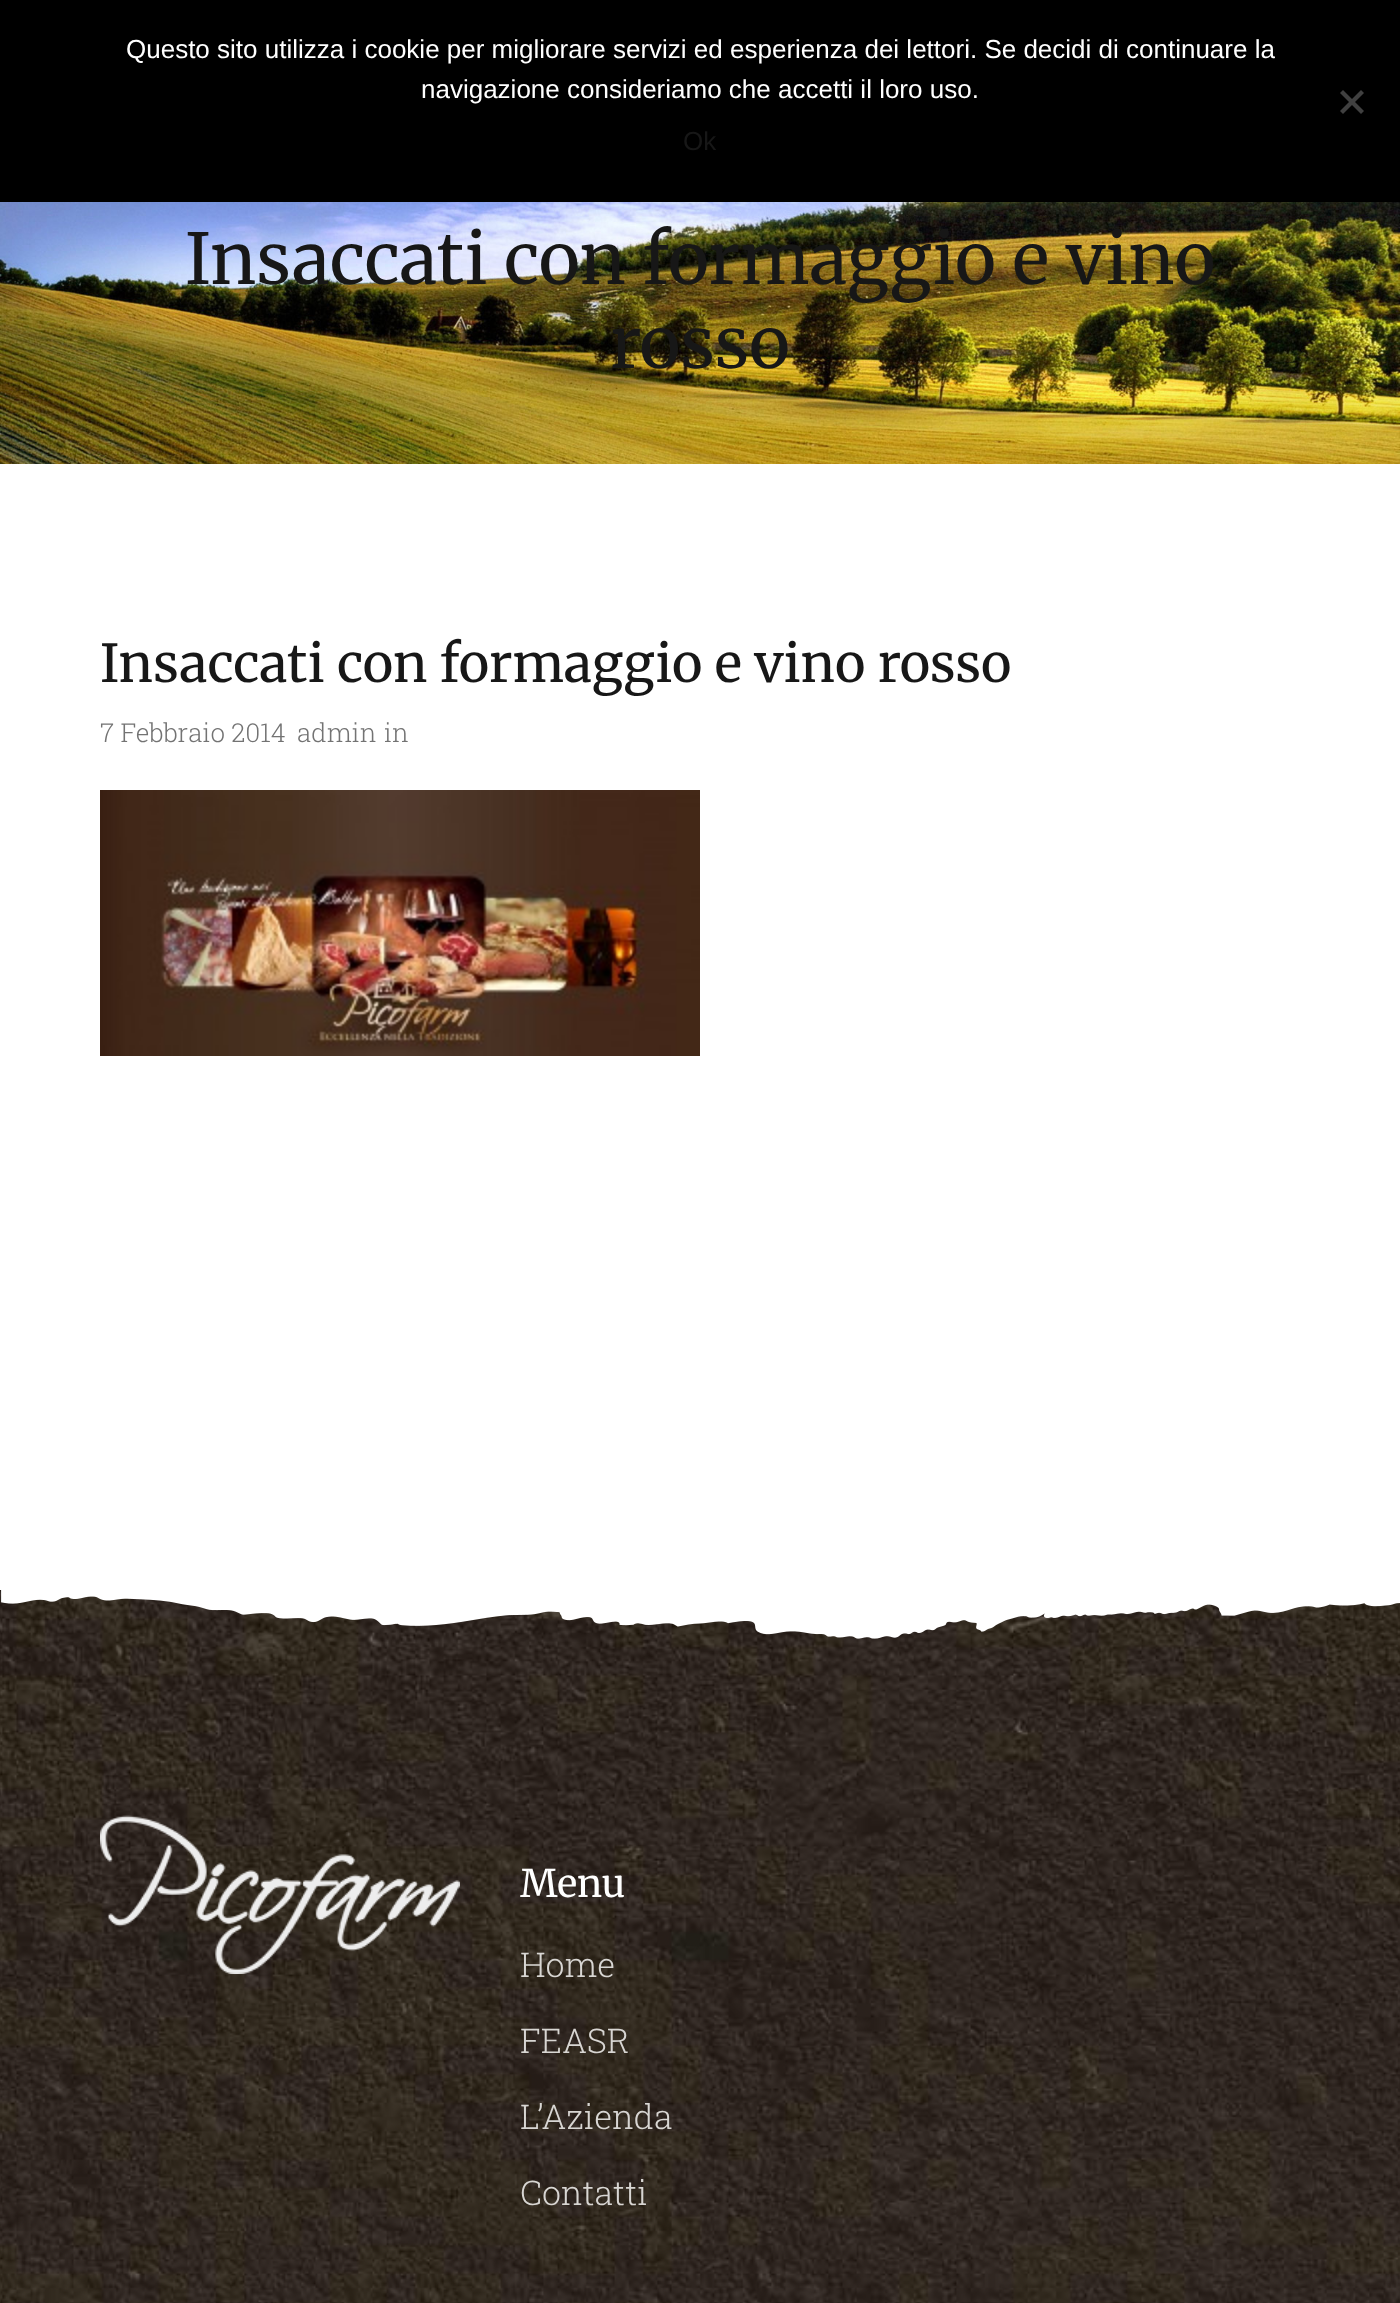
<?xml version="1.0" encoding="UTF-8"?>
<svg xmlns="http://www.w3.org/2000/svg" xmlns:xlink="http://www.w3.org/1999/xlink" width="1400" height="2303">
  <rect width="100%" height="100%" fill="#ffffff" />
  <rect width="1400" height="202" fill="#000000" />
  <path d="M 1361 90 l 3 3 l -21 21 l -3 -3 z" fill="#404040" />
  <path d="M 1340 93 l 3 -3 l 21 21 l -3 3 z" fill="#404040" />
  <image x="0" y="202" width="1400" height="262" xlink:href="image1.png" />
  <image x="100" y="790" width="600" height="266" xlink:href="image2.png" />
  <image x="0" y="1590" width="1400" height="713" xlink:href="image4.png" />
  <image x="1" y="1590" width="1399" height="49" xlink:href="image3.png" />
  <image x="100" y="1815" width="360" height="159" xlink:href="image5.png" />
  <text x="126" y="58" style="font-family: Liberation Sans; font-size: 26px; fill: #ffffff">Questo sito utilizza i cookie per migliorare servizi ed esperienza dei lettori. Se decidi di continuare la</text>
  <text x="421" y="98" style="font-family: Liberation Sans; font-size: 26px; fill: #ffffff">navigazione consideriamo che accetti il loro uso.</text>
  <text x="683" y="150" style="font-family: Liberation Sans; font-size: 26px; fill: #171717">Ok</text>
  <text x="185" y="284" style="font-family: Merriweather; font-size: 70px; fill: #171717">Insaccati con formaggio e vino</text>
  <text x="610" y="368" style="font-family: Merriweather; font-size: 70px; fill: #171717">rosso</text>
  <text x="100" y="682" style="font-family: Merriweather; font-size: 52px; fill: #171717">Insaccati con formaggio e vino rosso</text>
  <text x="100" y="742" style="font-family: Roboto Slab; font-size: 26px; font-weight: 300; fill: #737373">7 Febbraio 2014</text>
  <text x="297" y="742" style="font-family: Roboto Slab; font-size: 26px; font-weight: 300; fill: #737373">admin</text>
  <text x="384" y="742" style="font-family: Roboto Slab; font-size: 26px; font-weight: 300; fill: #737373">in</text>
  <text x="520" y="1897" style="font-family: Merriweather; font-size: 38px; fill: #ffffff">Menu</text>
  <text x="520" y="1977" style="font-family: Roboto Slab; font-size: 34px; font-weight: 300; fill: #d8d6d3">Home</text>
  <text x="520" y="2053" style="font-family: Roboto Slab; font-size: 34px; font-weight: 300; fill: #d8d6d3">FEASR</text>
  <text x="520" y="2129" style="font-family: Roboto Slab; font-size: 34px; font-weight: 300; fill: #d8d6d3">L’Azienda</text>
  <text x="520" y="2205" style="font-family: Roboto Slab; font-size: 34px; font-weight: 300; fill: #d8d6d3">Contatti</text>
</svg>
